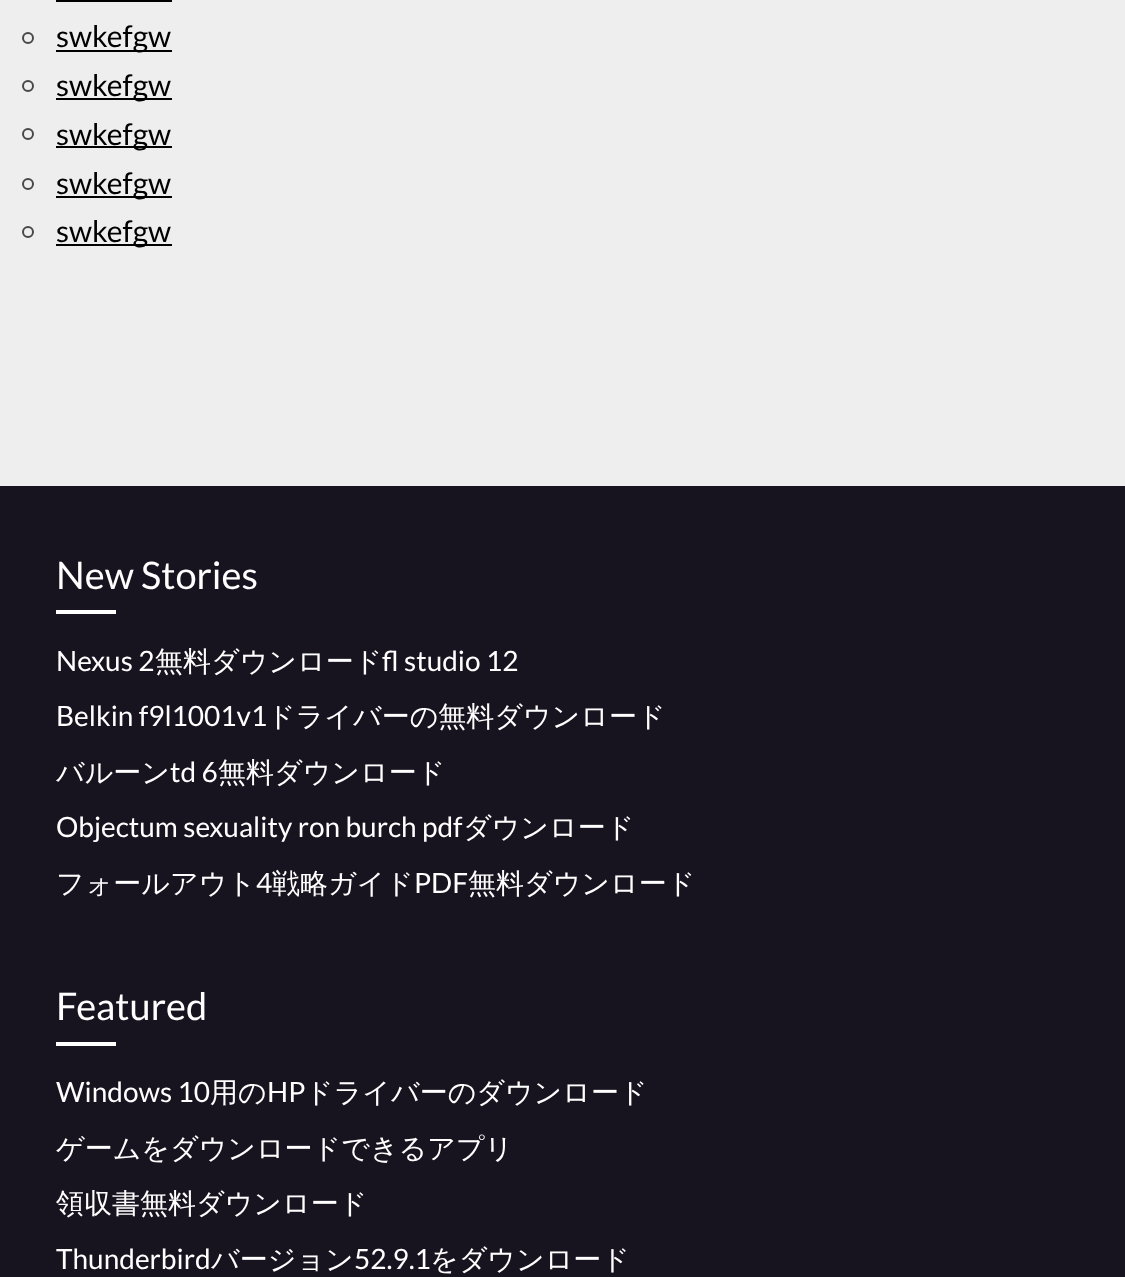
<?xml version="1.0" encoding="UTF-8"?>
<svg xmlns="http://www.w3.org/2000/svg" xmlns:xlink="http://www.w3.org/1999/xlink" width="1125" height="1277">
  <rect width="100%" height="100%" fill="#eeeeee" />
  <rect x="56" width="116" height="2" fill="#000000" />
  <circle cx="28" cy="38" r="5" fill="none" stroke="#484848" stroke-width="2" />
  <rect x="56" y="50" width="116" height="2" fill="#000000" />
  <circle cx="28" cy="86" r="5" fill="none" stroke="#484848" stroke-width="2" />
  <rect x="56" y="98" width="116" height="2" fill="#000000" />
  <circle cx="28" cy="134" r="5" fill="none" stroke="#484848" stroke-width="2" />
  <rect x="56" y="146" width="116" height="2" fill="#000000" />
  <circle cx="28" cy="184" r="5" fill="none" stroke="#484848" stroke-width="2" />
  <rect x="56" y="196" width="116" height="2" fill="#000000" />
  <circle cx="28" cy="232" r="5" fill="none" stroke="#484848" stroke-width="2" />
  <rect x="56" y="244" width="116" height="2" fill="#000000" />
  <rect y="486" width="1125" height="791" fill="#17141f" />
  <rect x="56" y="610" width="60" height="4" fill="#ffffff" />
  <rect x="56" y="1042" width="60" height="4" fill="#ffffff" />
  <text x="56" y="47" style="font-family: Lato; font-size: 30px; fill: #000000">swkefgw</text>
  <text x="56" y="96" style="font-family: Lato; font-size: 30px; fill: #000000">swkefgw</text>
  <text x="56" y="145" style="font-family: Lato; font-size: 30px; fill: #000000">swkefgw</text>
  <text x="56" y="194" style="font-family: Lato; font-size: 30px; fill: #000000">swkefgw</text>
  <text x="56" y="242" style="font-family: Lato; font-size: 30px; fill: #000000">swkefgw</text>
  <text x="56" y="589" style="font-family: Lato; font-size: 38px; fill: #ffffff">New Stories</text>
  <text x="56" y="671" style="font-family: Lato; font-size: 28px; fill: #ffffff">Nexus 2</text>
  <text x="155" y="671" style="font-family: WenQuanYi Zen Hei; font-size: 28px; font-weight: 500; fill: #ffffff">無料ダウンロード</text>
  <text x="382" y="671" style="font-family: Lato; font-size: 28px; fill: #ffffff">fl studio 12</text>
  <text x="56" y="726" style="font-family: Lato; font-size: 28px; fill: #ffffff">Belkin f9l1001v1</text>
  <text x="267" y="726" style="font-family: WenQuanYi Zen Hei; font-size: 28px; font-weight: 500; fill: #ffffff">ドライバーの無料ダウンロード</text>
  <text x="56" y="782" style="font-family: WenQuanYi Zen Hei; font-size: 28px; font-weight: 500; fill: #ffffff">バルーン</text>
  <text x="170" y="782" style="font-family: Lato; font-size: 28px; fill: #ffffff">td 6</text>
  <text x="218" y="782" style="font-family: WenQuanYi Zen Hei; font-size: 28px; font-weight: 500; fill: #ffffff">無料ダウンロード</text>
  <text x="56" y="837" style="font-family: Lato; font-size: 28px; fill: #ffffff">Objectum sexuality ron burch pdf</text>
  <text x="463" y="837" style="font-family: WenQuanYi Zen Hei; font-size: 28px; font-weight: 500; fill: #ffffff">ダウンロード</text>
  <text x="56" y="893" style="font-family: WenQuanYi Zen Hei; font-size: 28px; font-weight: 500; fill: #ffffff">フォールアウト</text>
  <text x="256" y="893" style="font-family: Lato; font-size: 28px; fill: #ffffff">4</text>
  <text x="272" y="893" style="font-family: WenQuanYi Zen Hei; font-size: 28px; font-weight: 500; fill: #ffffff">戦略ガイド</text>
  <text x="414" y="893" style="font-family: Lato; font-size: 28px; fill: #ffffff">PDF</text>
  <text x="468" y="893" style="font-family: WenQuanYi Zen Hei; font-size: 28px; font-weight: 500; fill: #ffffff">無料ダウンロード</text>
  <text x="56" y="1020" style="font-family: Lato; font-size: 38px; fill: #ffffff">Featured</text>
  <text x="56" y="1102" style="font-family: Lato; font-size: 28px; fill: #ffffff">Windows 10</text>
  <text x="210" y="1102" style="font-family: WenQuanYi Zen Hei; font-size: 28px; font-weight: 500; fill: #ffffff">用の</text>
  <text x="267" y="1102" style="font-family: Lato; font-size: 28px; fill: #ffffff">HP</text>
  <text x="305" y="1102" style="font-family: WenQuanYi Zen Hei; font-size: 28px; font-weight: 500; fill: #ffffff">ドライバーのダウンロード</text>
  <text x="56" y="1158" style="font-family: WenQuanYi Zen Hei; font-size: 28px; font-weight: 500; fill: #ffffff">ゲームをダウンロードできるアプリ</text>
  <text x="56" y="1213" style="font-family: WenQuanYi Zen Hei; font-size: 28px; font-weight: 500; fill: #ffffff">領収書無料ダウンロード</text>
  <text x="56" y="1269" style="font-family: Lato; font-size: 28px; fill: #ffffff">Thunderbird</text>
  <text x="211" y="1269" style="font-family: WenQuanYi Zen Hei; font-size: 28px; font-weight: 500; fill: #ffffff">バージョン</text>
  <text x="354" y="1269" style="font-family: Lato; font-size: 28px; fill: #ffffff">52.9.1</text>
  <text x="430" y="1269" style="font-family: WenQuanYi Zen Hei; font-size: 28px; font-weight: 500; fill: #ffffff">をダウンロード</text>
</svg>
